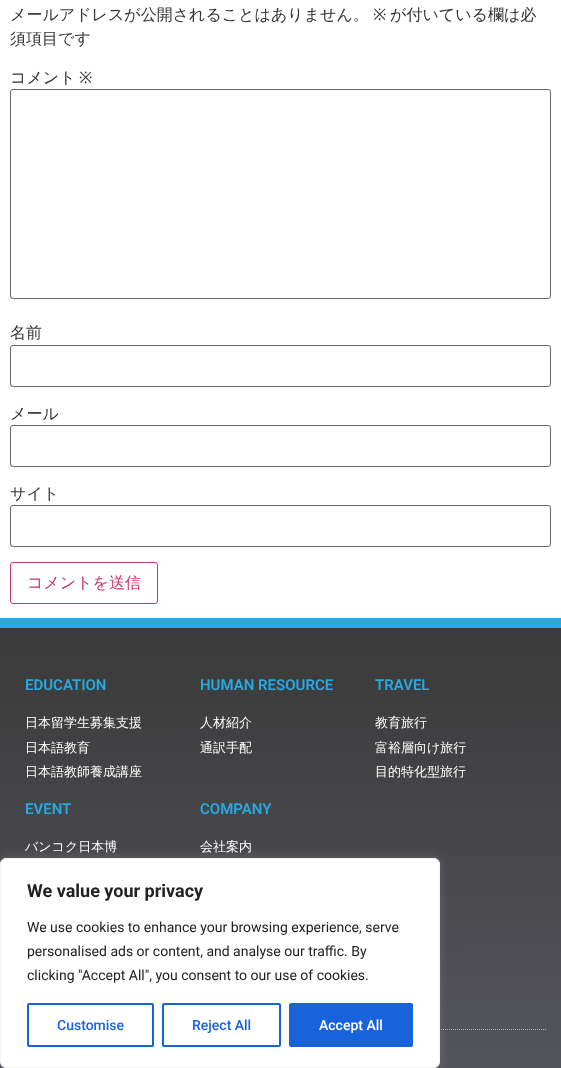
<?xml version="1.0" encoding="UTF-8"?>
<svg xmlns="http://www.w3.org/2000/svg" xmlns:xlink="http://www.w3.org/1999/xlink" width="561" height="1068">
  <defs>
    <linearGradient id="g1" gradientUnits="userSpaceOnUse" x1="281" y1="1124" x2="280" y2="628"><stop offset="0" stop-color="#575860" /><stop offset="1" stop-color="#3a3a3a" /></linearGradient>
  </defs>
  <rect width="100%" height="100%" fill="#ffffff" />
  <rect x="10.5" y="89.5" width="540" height="209" rx="2.5" fill="none" stroke="#666666" />
  <rect x="10.5" y="345.5" width="540" height="41" rx="2.5" fill="none" stroke="#666666" />
  <rect x="10.5" y="425.5" width="540" height="41" rx="2.5" fill="none" stroke="#666666" />
  <rect x="10.5" y="505.5" width="540" height="41" rx="2.5" fill="none" stroke="#666666" />
  <rect x="10.5" y="562.5" width="147" height="41" rx="2.5" fill="none" stroke="#cc3366" />
  <rect y="628" width="561" height="440" fill="url(#g1)" />
  <rect y="618" width="561" height="10" fill="#27a9e1" />
  <path d="M 15 1029.5 h 531" fill="none" stroke="#b2b3b6" stroke-dasharray="1 1" />
  <rect y="857" width="440" height="210" rx="6" fill="#acabab" fill-opacity="0.3" filter="blur(5px)" />
  <rect x="0.5" y="858.5" width="439" height="209" rx="5.5" fill="#ffffff" stroke="#f4f4f4" />
  <rect x="28" y="1004" width="125" height="42" rx="1" fill="none" stroke="#1863dc" stroke-width="2" />
  <rect x="163" y="1004" width="117" height="42" rx="1" fill="none" stroke="#1863dc" stroke-width="2" />
  <rect x="290" y="1004" width="122" height="42" rx="1" fill="#1863dc" stroke="#1863dc" stroke-width="2" />
  <text x="10" y="20" style="font-family: WenQuanYi Zen Hei; font-size: 16px; font-weight: 500; fill: #333333">メールアドレスが公開されることはありません。</text>
  <text x="373" y="20" style="font-family: Noto Sans; font-size: 16px; fill: #333333">※</text>
  <text x="390" y="20" style="font-family: WenQuanYi Zen Hei; font-size: 16px; font-weight: 500; fill: #333333">が付いている欄は必</text>
  <text x="10" y="44" style="font-family: WenQuanYi Zen Hei; font-size: 16px; font-weight: 500; fill: #333333">須項目です</text>
  <text x="10" y="83" style="font-family: WenQuanYi Zen Hei; font-size: 16px; font-weight: 500; fill: #333333">コメント</text>
  <text x="79" y="83" style="font-family: Noto Sans; font-size: 16px; fill: #333333">※</text>
  <text x="10" y="338" style="font-family: WenQuanYi Zen Hei; font-size: 16px; font-weight: 500; fill: #333333">名前</text>
  <text x="10" y="419" style="font-family: WenQuanYi Zen Hei; font-size: 16px; font-weight: 500; fill: #333333">メール</text>
  <text x="10" y="499" style="font-family: WenQuanYi Zen Hei; font-size: 16px; font-weight: 500; fill: #333333">サイト</text>
  <text x="27" y="588" style="font-family: WenQuanYi Zen Hei; font-size: 16px; font-weight: 500; fill: #cc3366">コメントを送信</text>
  <text x="25" y="690" style="font-family: Roboto; font-size: 15px; font-weight: 600; fill: #27a9e1">EDUCATION</text>
  <text x="25" y="727" style="font-family: WenQuanYi Zen Hei; font-size: 13px; font-weight: 500; fill: #ffffff">日本留学生募集支援</text>
  <text x="25" y="752" style="font-family: WenQuanYi Zen Hei; font-size: 13px; font-weight: 500; fill: #ffffff">日本語教育</text>
  <text x="25" y="776" style="font-family: WenQuanYi Zen Hei; font-size: 13px; font-weight: 500; fill: #ffffff">日本語教師養成講座</text>
  <text x="200" y="690" style="font-family: Roboto; font-size: 15px; font-weight: 600; fill: #27a9e1">HUMAN RESOURCE</text>
  <text x="200" y="727" style="font-family: WenQuanYi Zen Hei; font-size: 13px; font-weight: 500; fill: #ffffff">人材紹介</text>
  <text x="200" y="752" style="font-family: WenQuanYi Zen Hei; font-size: 13px; font-weight: 500; fill: #ffffff">通訳手配</text>
  <text x="375" y="690" style="font-family: Roboto; font-size: 15px; font-weight: 600; fill: #27a9e1">TRAVEL</text>
  <text x="375" y="727" style="font-family: WenQuanYi Zen Hei; font-size: 13px; font-weight: 500; fill: #ffffff">教育旅行</text>
  <text x="375" y="752" style="font-family: WenQuanYi Zen Hei; font-size: 13px; font-weight: 500; fill: #ffffff">富裕層向け旅行</text>
  <text x="375" y="776" style="font-family: WenQuanYi Zen Hei; font-size: 13px; font-weight: 500; fill: #ffffff">目的特化型旅行</text>
  <text x="25" y="814" style="font-family: Roboto; font-size: 15px; font-weight: 600; fill: #27a9e1">EVENT</text>
  <text x="25" y="851" style="font-family: WenQuanYi Zen Hei; font-size: 13px; font-weight: 500; fill: #ffffff">バンコク日本博</text>
  <text x="200" y="814" style="font-family: Roboto; font-size: 15px; font-weight: 600; fill: #27a9e1">COMPANY</text>
  <text x="200" y="851" style="font-family: WenQuanYi Zen Hei; font-size: 13px; font-weight: 500; fill: #ffffff">会社案内</text>
  <text x="27" y="897" style="font-family: Roboto; font-size: 18px; font-weight: bold; fill: #212121">We value your privacy</text>
  <text x="27" y="932" style="font-family: Roboto; font-size: 14px; fill: #212121">We use cookies to enhance your browsing experience, serve</text>
  <text x="27" y="956" style="font-family: Roboto; font-size: 14px; fill: #212121">personalised ads or content, and analyse our traffic. By</text>
  <text x="27" y="980" style="font-family: Roboto; font-size: 14px; fill: #212121">clicking "Accept All", you consent to our use of cookies.</text>
  <text x="57" y="1030" style="font-family: Roboto; font-size: 14px; font-weight: 500; fill: #1863dc">Customise</text>
  <text x="192" y="1030" style="font-family: Roboto; font-size: 14px; font-weight: 500; fill: #1863dc">Reject All</text>
  <text x="319" y="1030" style="font-family: Roboto; font-size: 14px; font-weight: 500; fill: #ffffff">Accept All</text>
</svg>
